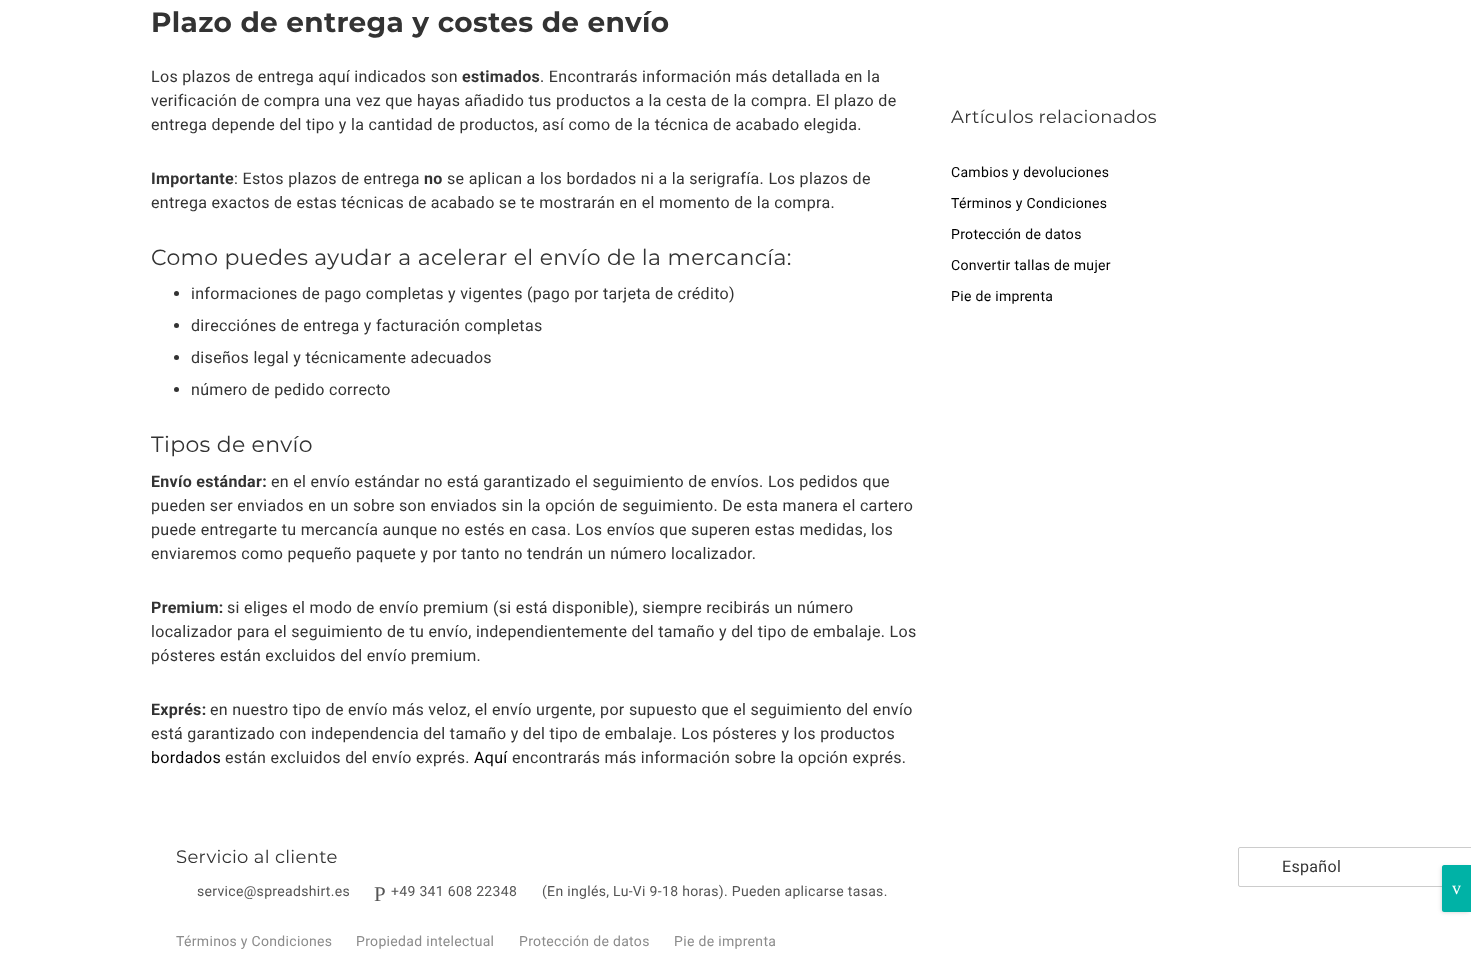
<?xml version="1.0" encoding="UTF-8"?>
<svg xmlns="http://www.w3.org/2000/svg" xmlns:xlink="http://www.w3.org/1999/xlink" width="1471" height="962">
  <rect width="100%" height="100%" fill="#ffffff" />
  <circle cx="176.5" cy="293.5" r="2.5" fill="#333333" />
  <circle cx="176.5" cy="325.5" r="2.5" fill="#333333" />
  <circle cx="176.5" cy="357.5" r="2.5" fill="#333333" />
  <circle cx="176.5" cy="389.5" r="2.5" fill="#333333" />
  <rect x="1238.5" y="847.5" width="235" height="39" rx="1.5" fill="none" stroke="#cccccc" />
  <rect x="1442" y="867" width="27" height="45" rx="1" fill="#000000" fill-opacity="0.2" filter="blur(2px)" />
  <path d="M 1444 865 h 27 v 47 h -27 c -1 0 -2 -1 -2 -2 v -43 c 0 -1 1 -2 2 -2 z" fill="#00b2a6" />
  <text x="151" y="32" style="font-family: Montserrat; font-size: 28px; font-weight: bold; letter-spacing: 0.32px; fill: #333333">Plazo de entrega y costes de envío</text>
  <text x="151" y="82" style="font-family: Roboto; font-size: 16px; letter-spacing: 0.32px; fill: #333333">Los plazos de entrega aquí indicados son</text>
  <text x="462" y="82" style="font-family: Roboto; font-size: 16px; font-weight: bold; letter-spacing: 0.32px; fill: #333333">estimados</text>
  <text x="540" y="82" style="font-family: Roboto; font-size: 16px; letter-spacing: 0.32px; fill: #333333">. Encontrarás información más detallada en la</text>
  <text x="151" y="106" style="font-family: Roboto; font-size: 16px; letter-spacing: 0.32px; fill: #333333">verificación de compra una vez que hayas añadido tus productos a la cesta de la compra. El plazo de</text>
  <text x="151" y="130" style="font-family: Roboto; font-size: 16px; letter-spacing: 0.32px; fill: #333333">entrega depende del tipo y la cantidad de productos, así como de la técnica de acabado elegida.</text>
  <text x="151" y="184" style="font-family: Roboto; font-size: 16px; font-weight: bold; letter-spacing: 0.32px; fill: #333333">Importante</text>
  <text x="234" y="184" style="font-family: Roboto; font-size: 16px; letter-spacing: 0.32px; fill: #333333">: Estos plazos de entrega</text>
  <text x="424" y="184" style="font-family: Roboto; font-size: 16px; font-weight: bold; letter-spacing: 0.32px; fill: #333333">no</text>
  <text x="447" y="184" style="font-family: Roboto; font-size: 16px; letter-spacing: 0.32px; fill: #333333">se aplican a los bordados ni a la serigrafía. Los plazos de</text>
  <text x="151" y="208" style="font-family: Roboto; font-size: 16px; letter-spacing: 0.32px; fill: #333333">entrega exactos de estas técnicas de acabado se te mostrarán en el momento de la compra.</text>
  <text x="151" y="265" style="font-family: Montserrat; font-size: 22px; letter-spacing: 0.32px; fill: #333333">Como puedes ayudar a acelerar el envío de la mercancía:</text>
  <text x="191" y="299" style="font-family: Roboto; font-size: 16px; letter-spacing: 0.32px; fill: #333333">informaciones de pago completas y vigentes (pago por tarjeta de crédito)</text>
  <text x="191" y="331" style="font-family: Roboto; font-size: 16px; letter-spacing: 0.32px; fill: #333333">direcciónes de entrega y facturación completas</text>
  <text x="191" y="363" style="font-family: Roboto; font-size: 16px; letter-spacing: 0.32px; fill: #333333">diseños legal y técnicamente adecuados</text>
  <text x="191" y="395" style="font-family: Roboto; font-size: 16px; letter-spacing: 0.32px; fill: #333333">número de pedido correcto</text>
  <text x="151" y="452" style="font-family: Montserrat; font-size: 22px; letter-spacing: 0.32px; fill: #333333">Tipos de envío</text>
  <text x="151" y="487" style="font-family: Roboto; font-size: 16px; font-weight: bold; letter-spacing: 0.32px; fill: #333333">Envío estándar:</text>
  <text x="271" y="487" style="font-family: Roboto; font-size: 16px; letter-spacing: 0.32px; fill: #333333">en el envío estándar no está garantizado el seguimiento de envíos. Los pedidos que</text>
  <text x="151" y="511" style="font-family: Roboto; font-size: 16px; letter-spacing: 0.32px; fill: #333333">pueden ser enviados en un sobre son enviados sin la opción de seguimiento. De esta manera el cartero</text>
  <text x="151" y="535" style="font-family: Roboto; font-size: 16px; letter-spacing: 0.32px; fill: #333333">puede entregarte tu mercancía aunque no estés en casa. Los envíos que superen estas medidas, los</text>
  <text x="151" y="559" style="font-family: Roboto; font-size: 16px; letter-spacing: 0.32px; fill: #333333">enviaremos como pequeño paquete y por tanto no tendrán un número localizador.</text>
  <text x="151" y="613" style="font-family: Roboto; font-size: 16px; font-weight: bold; letter-spacing: 0.32px; fill: #333333">Premium:</text>
  <text x="227" y="613" style="font-family: Roboto; font-size: 16px; letter-spacing: 0.32px; fill: #333333">si eliges el modo de envío premium (si está disponible), siempre recibirás un número</text>
  <text x="151" y="637" style="font-family: Roboto; font-size: 16px; letter-spacing: 0.32px; fill: #333333">localizador para el seguimiento de tu envío, independientemente del tamaño y del tipo de embalaje. Los</text>
  <text x="151" y="661" style="font-family: Roboto; font-size: 16px; letter-spacing: 0.32px; fill: #333333">pósteres están excluidos del envío premium.</text>
  <text x="151" y="715" style="font-family: Roboto; font-size: 16px; font-weight: bold; letter-spacing: 0.32px; fill: #333333">Exprés:</text>
  <text x="210" y="715" style="font-family: Roboto; font-size: 16px; letter-spacing: 0.32px; fill: #333333">en nuestro tipo de envío más veloz, el envío urgente, por supuesto que el seguimiento del envío</text>
  <text x="151" y="739" style="font-family: Roboto; font-size: 16px; letter-spacing: 0.32px; fill: #333333">está garantizado con independencia del tamaño y del tipo de embalaje. Los pósteres y los productos</text>
  <text x="151" y="763" style="font-family: Roboto; font-size: 16px; letter-spacing: 0.32px; fill: #000000">bordados</text>
  <text x="225" y="763" style="font-family: Roboto; font-size: 16px; letter-spacing: 0.32px; fill: #333333">están excluidos del envío exprés.</text>
  <text x="474" y="763" style="font-family: Roboto; font-size: 16px; letter-spacing: 0.32px; fill: #000000">Aquí</text>
  <text x="512" y="763" style="font-family: Roboto; font-size: 16px; letter-spacing: 0.32px; fill: #333333">encontrarás más información sobre la opción exprés.</text>
  <text x="951" y="123" style="font-family: Montserrat; font-size: 18px; letter-spacing: 0.32px; fill: #333333">Artículos relacionados</text>
  <text x="951" y="177" style="font-family: Roboto; font-size: 14px; letter-spacing: 0.32px; fill: #000000">Cambios y devoluciones</text>
  <text x="951" y="208" style="font-family: Roboto; font-size: 14px; letter-spacing: 0.32px; fill: #000000">Términos y Condiciones</text>
  <text x="951" y="239" style="font-family: Roboto; font-size: 14px; letter-spacing: 0.32px; fill: #000000">Protección de datos</text>
  <text x="951" y="270" style="font-family: Roboto; font-size: 14px; letter-spacing: 0.32px; fill: #000000">Convertir tallas de mujer</text>
  <text x="951" y="301" style="font-family: Roboto; font-size: 14px; letter-spacing: 0.32px; fill: #000000">Pie de imprenta</text>
  <text x="176" y="863" style="font-family: Montserrat; font-size: 18px; letter-spacing: 0.32px; fill: #333333">Servicio al cliente</text>
  <text x="197" y="896" style="font-family: Roboto; font-size: 14px; letter-spacing: 0.32px; fill: #555555">service@spreadshirt.es</text>
  <text x="374" y="901" style="font-family: Liberation Serif; font-size: 21px; letter-spacing: 0.32px; fill: #555555">P</text>
  <text x="391" y="896" style="font-family: Roboto; font-size: 14px; letter-spacing: 0.32px; fill: #555555">+49 341 608 22348</text>
  <text x="542" y="896" style="font-family: Roboto; font-size: 14px; letter-spacing: 0.32px; fill: #555555">(En inglés, Lu-Vi 9-18 horas). Pueden aplicarse tasas.</text>
  <text x="176" y="946" style="font-family: Roboto; font-size: 14px; letter-spacing: 0.32px; fill: #8c8c8c">Términos y Condiciones</text>
  <text x="356" y="946" style="font-family: Roboto; font-size: 14px; letter-spacing: 0.32px; fill: #8c8c8c">Propiedad intelectual</text>
  <text x="519" y="946" style="font-family: Roboto; font-size: 14px; letter-spacing: 0.32px; fill: #8c8c8c">Protección de datos</text>
  <text x="674" y="946" style="font-family: Roboto; font-size: 14px; letter-spacing: 0.32px; fill: #8c8c8c">Pie de imprenta</text>
  <text x="1282" y="872" style="font-family: Roboto; font-size: 16px; letter-spacing: 0.32px; fill: #333333">Español</text>
  <text x="1452" y="894" style="font-family: Liberation Serif; font-size: 18px; letter-spacing: 0.32px; fill: #ffffff">v</text>
</svg>
